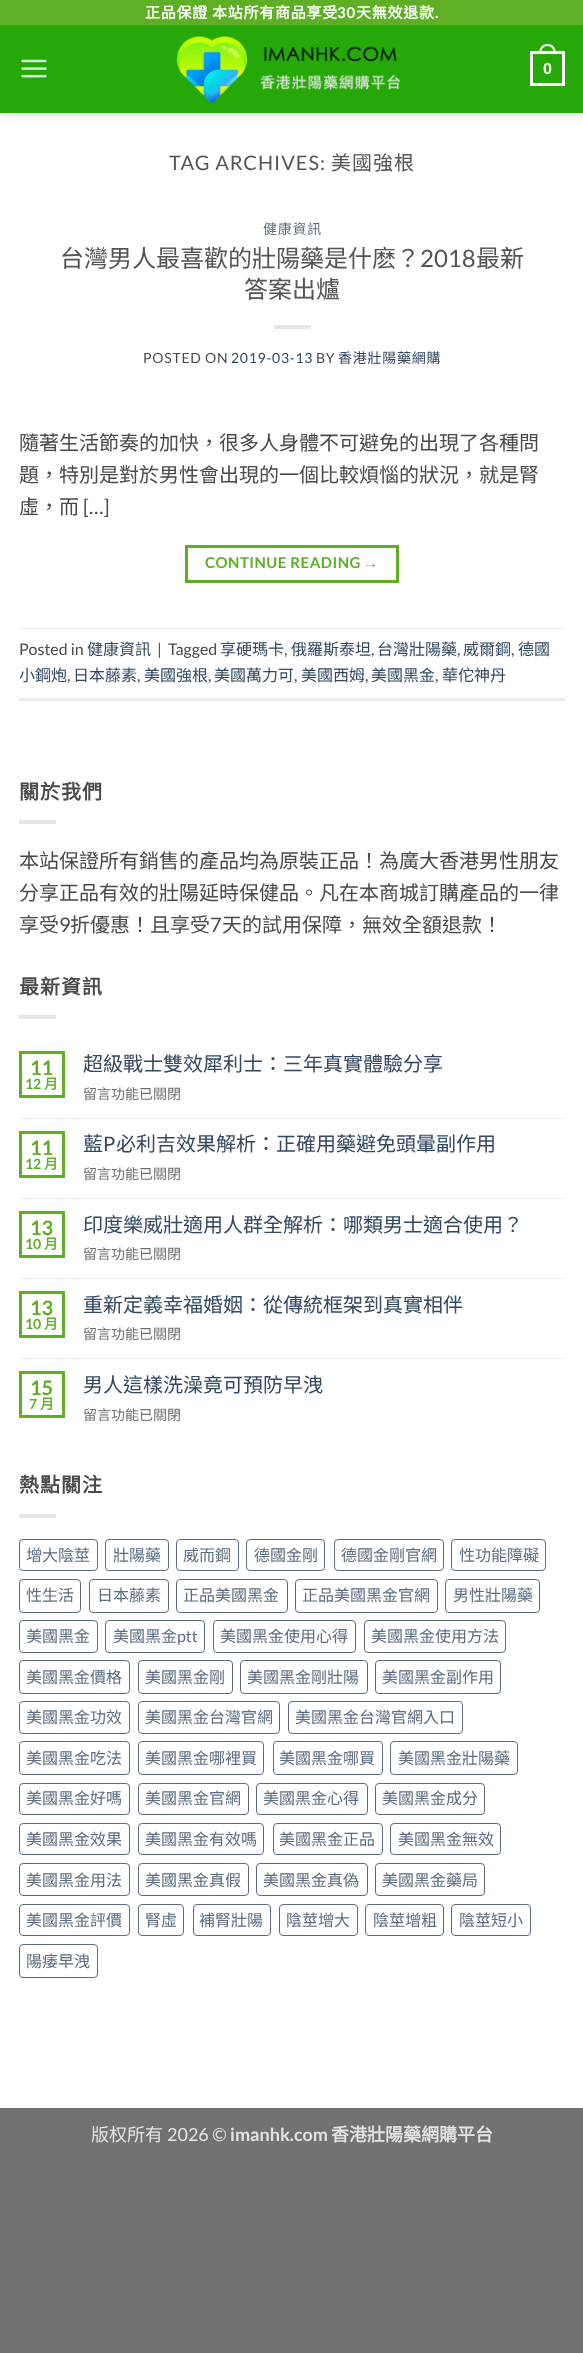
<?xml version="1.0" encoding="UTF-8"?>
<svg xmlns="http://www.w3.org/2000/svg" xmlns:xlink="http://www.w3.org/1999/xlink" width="583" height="2353">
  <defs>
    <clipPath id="clip1"><path d="M 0 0 h 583 v 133 h -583 z m 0 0 h 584 v 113 h -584 z" clip-rule="evenodd" /></clipPath>
  </defs>
  <rect width="100%" height="100%" fill="#727272" />
  <rect y="25" width="583" height="2083" fill="#ffffff" />
  <g clip-path="url(#clip1)">
    <rect x="1" y="1" width="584" height="113" fill="#000000" fill-opacity="0.15" filter="blur(6px)" />
  </g>
  <rect width="583" height="25" fill="#5faf26" />
  <rect y="25" width="583" height="88" fill="#1ea500" fill-opacity="0.97" />
  <image x="21" y="59" width="26" height="19" xlink:href="image1.png" />
  <image x="176" y="35" width="225" height="69" xlink:href="image2.png" />
  <rect x="531.5" y="52.5" width="32" height="32" fill="none" stroke="#ffffff" stroke-width="3" />
  <path d="M 547.5 44 c 6 0 8.5 4.5 8.5 10 h -17 c 0 -5.5 2.5 -10 8.5 -10 z m 0 2 c 4.5 0 6.5 4 6.5 8 h -13 c 0 -4 2 -8 6.5 -8 z" fill="#ffffff" fill-rule="evenodd" />
  <rect x="274" y="325" width="37" height="4" fill="#e6e6e6" />
  <rect x="186.5" y="546.5" width="211" height="35" fill="none" stroke="#5faf26" stroke-width="3" />
  <rect x="19" y="628" width="546" height="1" fill="#ececec" />
  <rect x="19" y="698" width="546" height="3" fill="#ececec" />
  <rect x="19" y="820" width="37" height="4" fill="#e6e6e6" />
  <rect x="19" y="1015" width="37" height="4" fill="#e6e6e6" />
  <rect x="20.5" y="1052.5" width="43" height="44" fill="none" stroke="#5faf26" stroke-width="3" />
  <rect x="19" y="1118" width="546" height="1" fill="#ececec" />
  <rect x="20.5" y="1132.5" width="43" height="44" fill="none" stroke="#5faf26" stroke-width="3" />
  <rect x="19" y="1198" width="546" height="1" fill="#ececec" />
  <rect x="20.5" y="1212.5" width="43" height="44" fill="none" stroke="#5faf26" stroke-width="3" />
  <rect x="19" y="1278" width="546" height="1" fill="#ececec" />
  <rect x="20.5" y="1292.5" width="43" height="44" fill="none" stroke="#5faf26" stroke-width="3" />
  <rect x="19" y="1358" width="546" height="1" fill="#ececec" />
  <rect x="20.5" y="1372.5" width="43" height="44" fill="none" stroke="#5faf26" stroke-width="3" />
  <rect x="19" y="1514" width="37" height="4" fill="#e6e6e6" />
  <rect x="19.5" y="1539.5" width="78" height="31" rx="3.5" fill="none" stroke="#5c6d81" />
  <rect x="105.5" y="1539.5" width="63" height="31" rx="3.5" fill="none" stroke="#5c6d81" />
  <rect x="176.5" y="1539.5" width="62" height="31" rx="3.5" fill="none" stroke="#5c6d81" />
  <rect x="246.5" y="1539.5" width="78" height="31" rx="3.5" fill="none" stroke="#5c6d81" />
  <rect x="334.5" y="1539.5" width="109" height="31" rx="3.5" fill="none" stroke="#5c6d81" />
  <rect x="451.5" y="1539.5" width="94" height="31" rx="3.5" fill="none" stroke="#5c6d81" />
  <rect x="19.5" y="1579.5" width="61" height="33" rx="3.5" fill="none" stroke="#5c6d81" />
  <rect x="89.5" y="1579.5" width="79" height="33" rx="3.5" fill="none" stroke="#5c6d81" />
  <rect x="176.5" y="1579.5" width="111" height="33" rx="3.5" fill="none" stroke="#5c6d81" />
  <rect x="295.5" y="1579.5" width="142" height="33" rx="3.5" fill="none" stroke="#5c6d81" />
  <rect x="445.5" y="1579.5" width="94" height="33" rx="3.5" fill="none" stroke="#5c6d81" />
  <rect x="19.5" y="1620.5" width="78" height="32" rx="3.5" fill="none" stroke="#5c6d81" />
  <rect x="105.5" y="1620.5" width="99" height="32" rx="3.5" fill="none" stroke="#5c6d81" />
  <rect x="213.5" y="1620.5" width="142" height="32" rx="3.5" fill="none" stroke="#5c6d81" />
  <rect x="364.5" y="1620.5" width="141" height="32" rx="3.5" fill="none" stroke="#5c6d81" />
  <rect x="19.5" y="1660.5" width="110" height="33" rx="3.5" fill="none" stroke="#5c6d81" />
  <rect x="138.5" y="1660.5" width="94" height="33" rx="3.5" fill="none" stroke="#5c6d81" />
  <rect x="240.5" y="1660.5" width="127" height="33" rx="3.5" fill="none" stroke="#5c6d81" />
  <rect x="375.5" y="1660.5" width="125" height="33" rx="3.5" fill="none" stroke="#5c6d81" />
  <rect x="19.5" y="1701.5" width="110" height="32" rx="3.5" fill="none" stroke="#5c6d81" />
  <rect x="138.5" y="1701.5" width="141" height="32" rx="3.5" fill="none" stroke="#5c6d81" />
  <rect x="288.5" y="1701.5" width="174" height="32" rx="3.5" fill="none" stroke="#5c6d81" />
  <rect x="19.5" y="1741.5" width="110" height="33" rx="3.5" fill="none" stroke="#5c6d81" />
  <rect x="138.5" y="1741.5" width="125" height="33" rx="3.5" fill="none" stroke="#5c6d81" />
  <rect x="273.5" y="1741.5" width="109" height="33" rx="3.5" fill="none" stroke="#5c6d81" />
  <rect x="390.5" y="1741.5" width="127" height="33" rx="3.5" fill="none" stroke="#5c6d81" />
  <rect x="19.5" y="1783.5" width="110" height="31" rx="3.5" fill="none" stroke="#5c6d81" />
  <rect x="138.5" y="1783.5" width="110" height="31" rx="3.5" fill="none" stroke="#5c6d81" />
  <rect x="256.5" y="1783.5" width="111" height="31" rx="3.5" fill="none" stroke="#5c6d81" />
  <rect x="375.5" y="1783.5" width="109" height="31" rx="3.5" fill="none" stroke="#5c6d81" />
  <rect x="19.5" y="1823.5" width="110" height="31" rx="3.5" fill="none" stroke="#5c6d81" />
  <rect x="138.5" y="1823.5" width="125" height="31" rx="3.5" fill="none" stroke="#5c6d81" />
  <rect x="273.5" y="1823.5" width="109" height="31" rx="3.5" fill="none" stroke="#5c6d81" />
  <rect x="390.5" y="1823.5" width="110" height="31" rx="3.5" fill="none" stroke="#5c6d81" />
  <rect x="19.5" y="1863.5" width="110" height="32" rx="3.5" fill="none" stroke="#5c6d81" />
  <rect x="138.5" y="1863.5" width="110" height="32" rx="3.5" fill="none" stroke="#5c6d81" />
  <rect x="256.5" y="1863.5" width="111" height="32" rx="3.5" fill="none" stroke="#5c6d81" />
  <rect x="375.5" y="1863.5" width="109" height="32" rx="3.5" fill="none" stroke="#5c6d81" />
  <rect x="19.5" y="1904.5" width="110" height="31" rx="3.5" fill="none" stroke="#5c6d81" />
  <rect x="138.5" y="1904.5" width="45" height="31" rx="3.5" fill="none" stroke="#5c6d81" />
  <rect x="193.5" y="1904.5" width="77" height="31" rx="3.5" fill="none" stroke="#5c6d81" />
  <rect x="279.5" y="1904.5" width="78" height="31" rx="3.5" fill="none" stroke="#5c6d81" />
  <rect x="365.5" y="1904.5" width="78" height="31" rx="3.5" fill="none" stroke="#5c6d81" />
  <rect x="451.5" y="1904.5" width="79" height="31" rx="3.5" fill="none" stroke="#5c6d81" />
  <rect x="19.5" y="1944.5" width="78" height="33" rx="3.5" fill="none" stroke="#5c6d81" />
  <text x="145" y="18" style="font-family: Noto Sans CJK HK; font-size: 15px; font-weight: bold; letter-spacing: 0.75px; fill: #ffffff">正品保證 本站所有商品享受</text>
  <text x="337" y="18" style="font-family: Lato; font-size: 15px; font-weight: bold; letter-spacing: 0.75px; fill: #ffffff">30</text>
  <text x="356" y="18" style="font-family: Noto Sans CJK HK; font-size: 15px; font-weight: bold; letter-spacing: 0.75px; fill: #ffffff">天無效退款</text>
  <text x="435" y="18" style="font-family: Lato; font-size: 15px; font-weight: bold; letter-spacing: 0.75px; fill: #ffffff">.</text>
  <text x="543" y="74" style="font-family: Liberation Sans; font-size: 16px; font-weight: bold; fill: #ffffff">0</text>
  <text x="169" y="170" style="font-family: Lato; font-size: 20px; letter-spacing: 1px; fill: #555555">TAG ARCHIVES:</text>
  <text x="331" y="170" style="font-family: Noto Sans CJK HK; font-size: 20px; letter-spacing: 1px; fill: #555555">美國強根</text>
  <text x="263" y="234" style="font-family: Noto Sans CJK HK; font-size: 14px; letter-spacing: 0.75px; fill: #5c6d81">健康資訊</text>
  <text x="60" y="267" style="font-family: Noto Sans CJK HK; font-size: 24px; fill: #555555">台灣男人最喜歡的壯陽藥是什麽？</text>
  <text x="420" y="267" style="font-family: Lato; font-size: 24px; fill: #555555">2018</text>
  <text x="476" y="267" style="font-family: Noto Sans CJK HK; font-size: 24px; fill: #555555">最新</text>
  <text x="244" y="298" style="font-family: Noto Sans CJK HK; font-size: 24px; fill: #555555">答案出爐</text>
  <text x="143" y="363" style="font-family: Lato; font-size: 14px; letter-spacing: 0.75px; fill: #4a4a4a">POSTED ON</text>
  <text x="231" y="363" style="font-family: Lato; font-size: 14px; letter-spacing: 0.75px; fill: #334862">2019-03-13</text>
  <text x="316" y="363" style="font-family: Lato; font-size: 14px; letter-spacing: 0.75px; fill: #4a4a4a">BY</text>
  <text x="338" y="363" style="font-family: Noto Sans CJK HK; font-size: 14px; letter-spacing: 0.75px; fill: #334862">香港壯陽藥網購</text>
  <text x="19" y="450" style="font-family: Noto Sans CJK HK; font-size: 20px; fill: #4a4a4a">隨著生活節奏的加快，很多人身體不可避免的出現了各種問</text>
  <text x="19" y="482" style="font-family: Noto Sans CJK HK; font-size: 20px; fill: #4a4a4a">題，特別是對於男性會出現的一個比較煩惱的狀況，就是腎</text>
  <text x="19" y="514" style="font-family: Noto Sans CJK HK; font-size: 20px; fill: #4a4a4a">虛，而</text>
  <text x="83" y="514" style="font-family: Lato; font-size: 20px; fill: #4a4a4a">[…]</text>
  <text x="205" y="568" style="font-family: Lato; font-size: 15px; font-weight: bold; letter-spacing: 0.5px; fill: #5faf26">CONTINUE READING</text>
  <text x="363" y="568" style="font-family: Liberation Sans; font-size: 15px; font-weight: bold; letter-spacing: 0.5px; fill: #5faf26">→</text>
  <text x="19" y="655" style="font-family: Lato; font-size: 16px; fill: #4a4a4a">Posted in</text>
  <text x="87" y="655" style="font-family: Noto Sans CJK HK; font-size: 16px; fill: #334862">健康資訊</text>
  <text x="157" y="655" style="font-family: Lato; font-size: 16px; fill: #4a4a4a">|</text>
  <text x="168" y="655" style="font-family: Lato; font-size: 16px; fill: #4a4a4a">Tagged</text>
  <text x="220" y="655" style="font-family: Noto Sans CJK HK; font-size: 16px; fill: #334862">享硬瑪卡</text>
  <text x="284" y="655" style="font-family: Lato; font-size: 16px; fill: #4a4a4a">,</text>
  <text x="291" y="655" style="font-family: Noto Sans CJK HK; font-size: 16px; fill: #334862">俄羅斯泰坦</text>
  <text x="371" y="655" style="font-family: Lato; font-size: 16px; fill: #4a4a4a">,</text>
  <text x="377" y="655" style="font-family: Noto Sans CJK HK; font-size: 16px; fill: #334862">台灣壯陽藥</text>
  <text x="457" y="655" style="font-family: Lato; font-size: 16px; fill: #4a4a4a">,</text>
  <text x="463" y="655" style="font-family: Noto Sans CJK HK; font-size: 16px; fill: #334862">威爾鋼</text>
  <text x="511" y="655" style="font-family: Lato; font-size: 16px; fill: #4a4a4a">,</text>
  <text x="518" y="655" style="font-family: Noto Sans CJK HK; font-size: 16px; fill: #334862">德國</text>
  <text x="19" y="681" style="font-family: Noto Sans CJK HK; font-size: 16px; fill: #334862">小鋼炮</text>
  <text x="67" y="681" style="font-family: Lato; font-size: 16px; fill: #4a4a4a">,</text>
  <text x="73" y="681" style="font-family: Noto Sans CJK HK; font-size: 16px; fill: #334862">日本藤素</text>
  <text x="137" y="681" style="font-family: Lato; font-size: 16px; fill: #4a4a4a">,</text>
  <text x="144" y="681" style="font-family: Noto Sans CJK HK; font-size: 16px; fill: #334862">美國強根</text>
  <text x="208" y="681" style="font-family: Lato; font-size: 16px; fill: #4a4a4a">,</text>
  <text x="214" y="681" style="font-family: Noto Sans CJK HK; font-size: 16px; fill: #334862">美國萬力可</text>
  <text x="294" y="681" style="font-family: Lato; font-size: 16px; fill: #4a4a4a">,</text>
  <text x="301" y="681" style="font-family: Noto Sans CJK HK; font-size: 16px; fill: #334862">美國西姆</text>
  <text x="365" y="681" style="font-family: Lato; font-size: 16px; fill: #4a4a4a">,</text>
  <text x="371" y="681" style="font-family: Noto Sans CJK HK; font-size: 16px; fill: #334862">美國黑金</text>
  <text x="435" y="681" style="font-family: Lato; font-size: 16px; fill: #4a4a4a">,</text>
  <text x="442" y="681" style="font-family: Noto Sans CJK HK; font-size: 16px; fill: #334862">華佗神丹</text>
  <text x="19" y="799" style="font-family: Noto Sans CJK HK; font-size: 20px; font-weight: bold; letter-spacing: 1px; fill: #4a4a4a">關於我們</text>
  <text x="19" y="868" style="font-family: Noto Sans CJK HK; font-size: 20px; fill: #4a4a4a">本站保證所有銷售的產品均為原裝正品！為廣大香港男性朋友</text>
  <text x="19" y="900" style="font-family: Noto Sans CJK HK; font-size: 20px; fill: #4a4a4a">分享正品有效的壯陽延時保健品。凡在本商城訂購產品的一律</text>
  <text x="19" y="932" style="font-family: Noto Sans CJK HK; font-size: 20px; fill: #4a4a4a">享受</text>
  <text x="59" y="932" style="font-family: Lato; font-size: 20px; fill: #4a4a4a">9</text>
  <text x="70" y="932" style="font-family: Noto Sans CJK HK; font-size: 20px; fill: #4a4a4a">折優惠！且享受</text>
  <text x="210" y="932" style="font-family: Lato; font-size: 20px; fill: #4a4a4a">7</text>
  <text x="222" y="932" style="font-family: Noto Sans CJK HK; font-size: 20px; fill: #4a4a4a">天的試用保障，無效全額退款！</text>
  <text x="19" y="994" style="font-family: Noto Sans CJK HK; font-size: 20px; font-weight: bold; letter-spacing: 1px; fill: #4a4a4a">最新資訊</text>
  <text x="30" y="1075" style="font-family: Lato; font-size: 20px; font-weight: bold; fill: #5faf26">11</text>
  <text x="25" y="1089" style="font-family: Lato; font-size: 14px; font-weight: bold; fill: #5faf26">12</text>
  <text x="44" y="1089" style="font-family: Noto Sans CJK HK; font-size: 14px; font-weight: bold; fill: #5faf26">月</text>
  <text x="83" y="1071" style="font-family: Noto Sans CJK HK; font-size: 20px; fill: #334862">超級戰士雙效犀利士：三年真實體驗分享</text>
  <text x="83" y="1099" style="font-family: Noto Sans CJK HK; font-size: 14px; fill: #6e6e6e">留言功能已關閉</text>
  <text x="30" y="1155" style="font-family: Lato; font-size: 20px; font-weight: bold; fill: #5faf26">11</text>
  <text x="25" y="1169" style="font-family: Lato; font-size: 14px; font-weight: bold; fill: #5faf26">12</text>
  <text x="44" y="1169" style="font-family: Noto Sans CJK HK; font-size: 14px; font-weight: bold; fill: #5faf26">月</text>
  <text x="83" y="1151" style="font-family: Noto Sans CJK HK; font-size: 20px; fill: #334862">藍</text>
  <text x="103" y="1151" style="font-family: Lato; font-size: 20px; fill: #334862">P</text>
  <text x="116" y="1151" style="font-family: Noto Sans CJK HK; font-size: 20px; fill: #334862">必利吉效果解析：正確用藥避免頭暈副作用</text>
  <text x="83" y="1179" style="font-family: Noto Sans CJK HK; font-size: 14px; fill: #6e6e6e">留言功能已關閉</text>
  <text x="30" y="1235" style="font-family: Lato; font-size: 20px; font-weight: bold; fill: #5faf26">13</text>
  <text x="25" y="1249" style="font-family: Lato; font-size: 14px; font-weight: bold; fill: #5faf26">10</text>
  <text x="44" y="1249" style="font-family: Noto Sans CJK HK; font-size: 14px; font-weight: bold; fill: #5faf26">月</text>
  <text x="83" y="1232" style="font-family: Noto Sans CJK HK; font-size: 20px; fill: #334862">印度樂威壯適用人群全解析：哪類男士適合使用？</text>
  <text x="83" y="1259" style="font-family: Noto Sans CJK HK; font-size: 14px; fill: #6e6e6e">留言功能已關閉</text>
  <text x="30" y="1315" style="font-family: Lato; font-size: 20px; font-weight: bold; fill: #5faf26">13</text>
  <text x="25" y="1329" style="font-family: Lato; font-size: 14px; font-weight: bold; fill: #5faf26">10</text>
  <text x="44" y="1329" style="font-family: Noto Sans CJK HK; font-size: 14px; font-weight: bold; fill: #5faf26">月</text>
  <text x="83" y="1312" style="font-family: Noto Sans CJK HK; font-size: 20px; fill: #334862">重新定義幸福婚姻：從傳統框架到真實相伴</text>
  <text x="83" y="1339" style="font-family: Noto Sans CJK HK; font-size: 14px; fill: #6e6e6e">留言功能已關閉</text>
  <text x="30" y="1395" style="font-family: Lato; font-size: 20px; font-weight: bold; fill: #5faf26">15</text>
  <text x="29" y="1409" style="font-family: Lato; font-size: 14px; font-weight: bold; fill: #5faf26">7</text>
  <text x="40" y="1409" style="font-family: Noto Sans CJK HK; font-size: 14px; font-weight: bold; fill: #5faf26">月</text>
  <text x="83" y="1392" style="font-family: Noto Sans CJK HK; font-size: 20px; fill: #334862">男人這樣洗澡竟可預防早洩</text>
  <text x="83" y="1420" style="font-family: Noto Sans CJK HK; font-size: 14px; fill: #6e6e6e">留言功能已關閉</text>
  <text x="19" y="1492" style="font-family: Noto Sans CJK HK; font-size: 20px; font-weight: bold; letter-spacing: 1px; fill: #4a4a4a">熱點關注</text>
  <text x="26" y="1561" style="font-family: Noto Sans CJK HK; font-size: 16px; fill: #5c6d81">增大陰莖</text>
  <text x="113" y="1561" style="font-family: Noto Sans CJK HK; font-size: 16px; fill: #5c6d81">壯陽藥</text>
  <text x="183" y="1561" style="font-family: Noto Sans CJK HK; font-size: 16px; fill: #5c6d81">威而鋼</text>
  <text x="254" y="1561" style="font-family: Noto Sans CJK HK; font-size: 16px; fill: #5c6d81">德國金剛</text>
  <text x="341" y="1561" style="font-family: Noto Sans CJK HK; font-size: 16px; fill: #5c6d81">德國金剛官網</text>
  <text x="459" y="1561" style="font-family: Noto Sans CJK HK; font-size: 16px; fill: #5c6d81">性功能障礙</text>
  <text x="26" y="1601" style="font-family: Noto Sans CJK HK; font-size: 16px; fill: #5c6d81">性生活</text>
  <text x="97" y="1601" style="font-family: Noto Sans CJK HK; font-size: 16px; fill: #5c6d81">日本藤素</text>
  <text x="183" y="1601" style="font-family: Noto Sans CJK HK; font-size: 16px; fill: #5c6d81">正品美國黑金</text>
  <text x="302" y="1601" style="font-family: Noto Sans CJK HK; font-size: 16px; fill: #5c6d81">正品美國黑金官網</text>
  <text x="453" y="1601" style="font-family: Noto Sans CJK HK; font-size: 16px; fill: #5c6d81">男性壯陽藥</text>
  <text x="26" y="1642" style="font-family: Noto Sans CJK HK; font-size: 16px; fill: #5c6d81">美國黑金</text>
  <text x="113" y="1642" style="font-family: Noto Sans CJK HK; font-size: 16px; fill: #5c6d81">美國黑金</text>
  <text x="177" y="1642" style="font-family: Lato; font-size: 16px; fill: #5c6d81">ptt</text>
  <text x="220" y="1642" style="font-family: Noto Sans CJK HK; font-size: 16px; fill: #5c6d81">美國黑金使用心得</text>
  <text x="371" y="1642" style="font-family: Noto Sans CJK HK; font-size: 16px; fill: #5c6d81">美國黑金使用方法</text>
  <text x="26" y="1683" style="font-family: Noto Sans CJK HK; font-size: 16px; fill: #5c6d81">美國黑金價格</text>
  <text x="145" y="1683" style="font-family: Noto Sans CJK HK; font-size: 16px; fill: #5c6d81">美國黑金剛</text>
  <text x="247" y="1683" style="font-family: Noto Sans CJK HK; font-size: 16px; fill: #5c6d81">美國黑金剛壯陽</text>
  <text x="382" y="1683" style="font-family: Noto Sans CJK HK; font-size: 16px; fill: #5c6d81">美國黑金副作用</text>
  <text x="26" y="1723" style="font-family: Noto Sans CJK HK; font-size: 16px; fill: #5c6d81">美國黑金功效</text>
  <text x="145" y="1723" style="font-family: Noto Sans CJK HK; font-size: 16px; fill: #5c6d81">美國黑金台灣官網</text>
  <text x="295" y="1723" style="font-family: Noto Sans CJK HK; font-size: 16px; fill: #5c6d81">美國黑金台灣官網入口</text>
  <text x="26" y="1764" style="font-family: Noto Sans CJK HK; font-size: 16px; fill: #5c6d81">美國黑金吃法</text>
  <text x="145" y="1764" style="font-family: Noto Sans CJK HK; font-size: 16px; fill: #5c6d81">美國黑金哪裡買</text>
  <text x="279" y="1764" style="font-family: Noto Sans CJK HK; font-size: 16px; fill: #5c6d81">美國黑金哪買</text>
  <text x="398" y="1764" style="font-family: Noto Sans CJK HK; font-size: 16px; fill: #5c6d81">美國黑金壯陽藥</text>
  <text x="26" y="1804" style="font-family: Noto Sans CJK HK; font-size: 16px; fill: #5c6d81">美國黑金好嗎</text>
  <text x="145" y="1804" style="font-family: Noto Sans CJK HK; font-size: 16px; fill: #5c6d81">美國黑金官網</text>
  <text x="263" y="1804" style="font-family: Noto Sans CJK HK; font-size: 16px; fill: #5c6d81">美國黑金心得</text>
  <text x="382" y="1804" style="font-family: Noto Sans CJK HK; font-size: 16px; fill: #5c6d81">美國黑金成分</text>
  <text x="26" y="1845" style="font-family: Noto Sans CJK HK; font-size: 16px; fill: #5c6d81">美國黑金效果</text>
  <text x="145" y="1845" style="font-family: Noto Sans CJK HK; font-size: 16px; fill: #5c6d81">美國黑金有效嗎</text>
  <text x="279" y="1845" style="font-family: Noto Sans CJK HK; font-size: 16px; fill: #5c6d81">美國黑金正品</text>
  <text x="398" y="1845" style="font-family: Noto Sans CJK HK; font-size: 16px; fill: #5c6d81">美國黑金無效</text>
  <text x="26" y="1886" style="font-family: Noto Sans CJK HK; font-size: 16px; fill: #5c6d81">美國黑金用法</text>
  <text x="145" y="1886" style="font-family: Noto Sans CJK HK; font-size: 16px; fill: #5c6d81">美國黑金真假</text>
  <text x="263" y="1886" style="font-family: Noto Sans CJK HK; font-size: 16px; fill: #5c6d81">美國黑金真偽</text>
  <text x="382" y="1886" style="font-family: Noto Sans CJK HK; font-size: 16px; fill: #5c6d81">美國黑金藥局</text>
  <text x="26" y="1926" style="font-family: Noto Sans CJK HK; font-size: 16px; fill: #5c6d81">美國黑金評價</text>
  <text x="145" y="1926" style="font-family: Noto Sans CJK HK; font-size: 16px; fill: #5c6d81">腎虛</text>
  <text x="199" y="1926" style="font-family: Noto Sans CJK HK; font-size: 16px; fill: #5c6d81">補腎壯陽</text>
  <text x="286" y="1926" style="font-family: Noto Sans CJK HK; font-size: 16px; fill: #5c6d81">陰莖增大</text>
  <text x="373" y="1926" style="font-family: Noto Sans CJK HK; font-size: 16px; fill: #5c6d81">陰莖增粗</text>
  <text x="459" y="1926" style="font-family: Noto Sans CJK HK; font-size: 16px; fill: #5c6d81">陰莖短小</text>
  <text x="26" y="1967" style="font-family: Noto Sans CJK HK; font-size: 16px; fill: #5c6d81">陽痿早洩</text>
  <text x="91" y="2141" style="font-family: Noto Sans CJK HK; font-size: 18px; fill: #e3e3e3">版权所有</text>
  <text x="167" y="2141" style="font-family: Lato; font-size: 18px; fill: #e3e3e3">2026 ©</text>
  <text x="230" y="2141" style="font-family: Lato; font-size: 18px; font-weight: bold; fill: #e3e3e3">imanhk.com</text>
  <text x="331" y="2141" style="font-family: Noto Sans CJK HK; font-size: 18px; font-weight: bold; fill: #e3e3e3">香港壯陽藥網購平台</text>
</svg>
